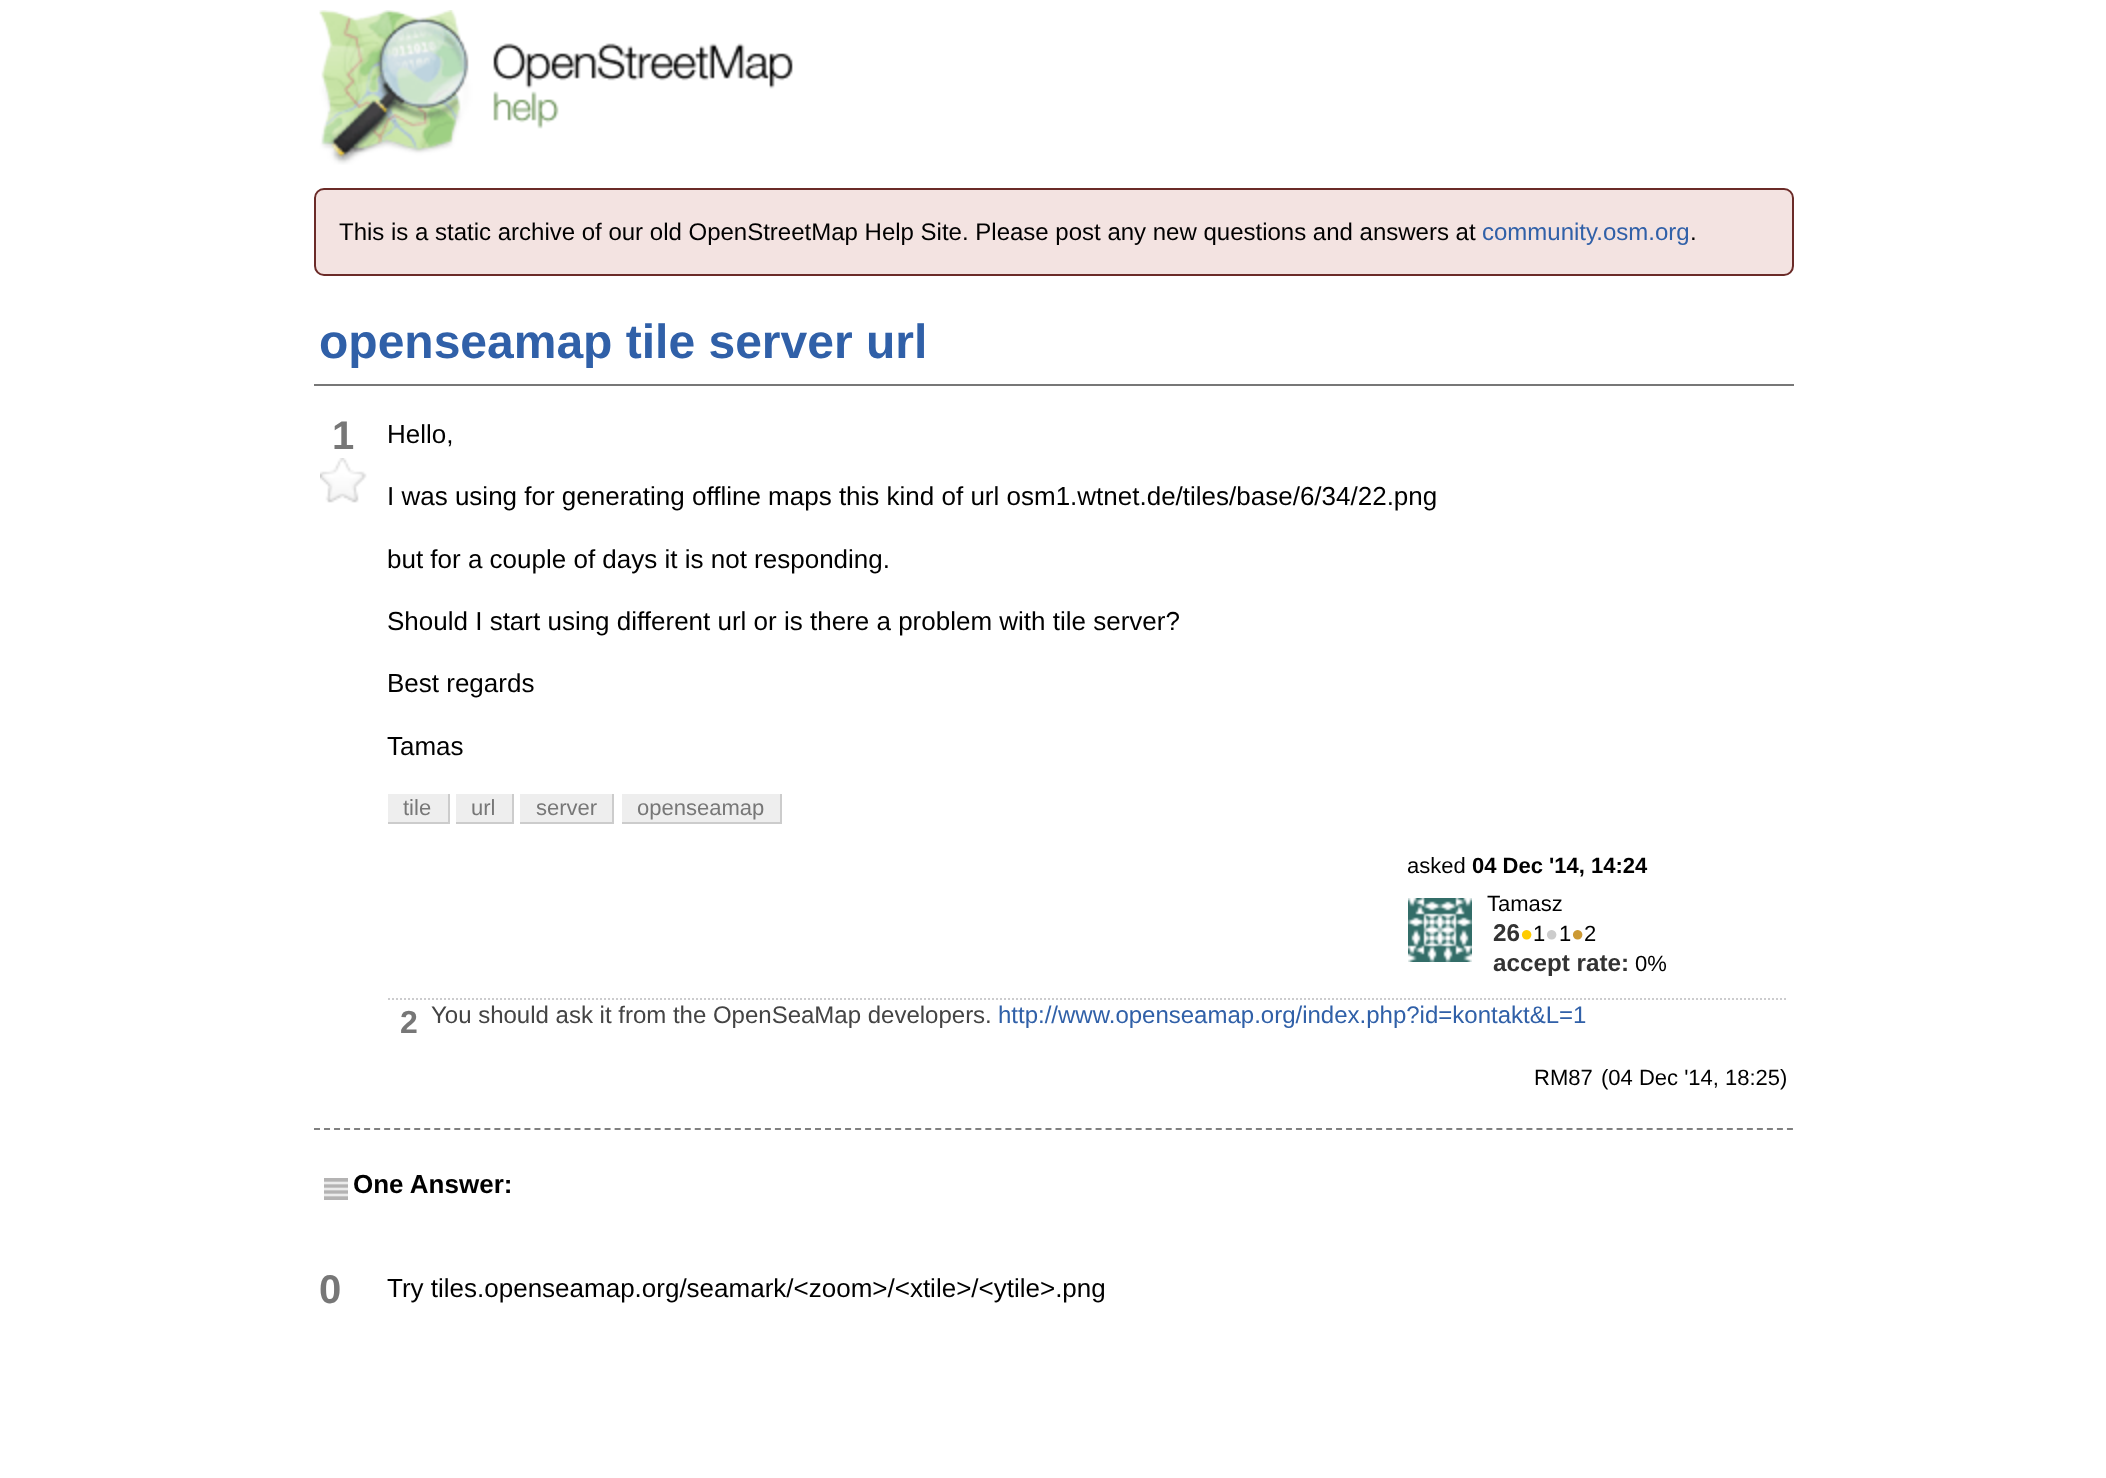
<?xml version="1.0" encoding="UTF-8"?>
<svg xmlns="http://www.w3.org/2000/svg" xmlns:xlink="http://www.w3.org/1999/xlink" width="2106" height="1478">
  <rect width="100%" height="100%" fill="#ffffff" />
  <image x="319" y="10" width="474" height="155" xlink:href="image1.png" />
  <rect x="315" y="189" width="1478" height="86" rx="9" fill="#f3e3e1" stroke="#6b2b28" stroke-width="2" />
  <rect x="314" y="384" width="1480" height="2" fill="#777777" />
  <image x="320" y="458" width="47" height="45" xlink:href="image2.png" />
  <rect x="388" y="794" width="60" height="28" fill="#eeeeee" />
  <rect x="448" y="794" width="2" height="30" fill="#cccccc" />
  <rect x="388" y="822" width="62" height="2" fill="#cccccc" />
  <rect x="456" y="794" width="56" height="28" fill="#eeeeee" />
  <rect x="512" y="794" width="2" height="30" fill="#cccccc" />
  <rect x="456" y="822" width="58" height="2" fill="#cccccc" />
  <rect x="520" y="794" width="92" height="28" fill="#eeeeee" />
  <rect x="612" y="794" width="2" height="30" fill="#cccccc" />
  <rect x="520" y="822" width="94" height="2" fill="#cccccc" />
  <rect x="622" y="794" width="158" height="28" fill="#eeeeee" />
  <rect x="780" y="794" width="2" height="30" fill="#cccccc" />
  <rect x="622" y="822" width="160" height="2" fill="#cccccc" />
  <image x="1408" y="898" width="64" height="64" xlink:href="image3.png" />
  <path d="M 388 999 h 1400" fill="none" stroke="#ccccce" stroke-width="2" stroke-dasharray="2 2" />
  <path d="M 314 1129 h 1480" fill="none" stroke="#808080" stroke-width="2" stroke-dasharray="6 4.02" />
  <image x="324" y="1178" width="24" height="22" xlink:href="image4.png" />
  <text x="339" y="240" style="font-family: Liberation Sans; font-size: 24px; fill: #000000">This is a static archive of our old OpenStreetMap Help Site. Please post any new questions and answers at</text>
  <text x="1482" y="240" style="font-family: Liberation Sans; font-size: 24px; fill: #3060a8">community.osm.org</text>
  <text x="1690" y="240" style="font-family: Liberation Sans; font-size: 24px; fill: #000000">.</text>
  <text x="319" y="358" style="font-family: Liberation Sans; font-size: 48px; font-weight: bold; fill: #3060a8">openseamap tile server url</text>
  <text x="332" y="449" style="font-family: Liberation Sans; font-size: 40px; font-weight: bold; fill: #777777">1</text>
  <text x="387" y="443" style="font-family: Liberation Sans; font-size: 26px; fill: #000000">Hello,</text>
  <text x="387" y="505" style="font-family: Liberation Sans; font-size: 26px; fill: #000000">I was using for generating offline maps this kind of url osm1.wtnet.de/tiles/base/6/34/22.png</text>
  <text x="387" y="568" style="font-family: Liberation Sans; font-size: 26px; fill: #000000">but for a couple of days it is not responding.</text>
  <text x="387" y="630" style="font-family: Liberation Sans; font-size: 26px; fill: #000000">Should I start using different url or is there a problem with tile server?</text>
  <text x="387" y="692" style="font-family: Liberation Sans; font-size: 26px; fill: #000000">Best regards</text>
  <text x="387" y="755" style="font-family: Liberation Sans; font-size: 26px; fill: #000000">Tamas</text>
  <text x="403" y="815" style="font-family: Liberation Sans; font-size: 22px; fill: #777777">tile</text>
  <text x="471" y="815" style="font-family: Liberation Sans; font-size: 22px; fill: #777777">url</text>
  <text x="536" y="815" style="font-family: Liberation Sans; font-size: 22px; fill: #777777">server</text>
  <text x="637" y="815" style="font-family: Liberation Sans; font-size: 22px; fill: #777777">openseamap</text>
  <text x="1407" y="873" style="font-family: Liberation Sans; font-size: 22px; fill: #000000">asked</text>
  <text x="1472" y="873" style="font-family: Liberation Sans; font-size: 22px; font-weight: bold; fill: #000000">04 Dec '14, 14:24</text>
  <text x="1487" y="911" style="font-family: Liberation Sans; font-size: 22px; fill: #000000">Tamasz</text>
  <text x="1493" y="941" style="font-family: Liberation Sans; font-size: 24.25px; font-weight: bold; fill: #333333">26</text>
  <text x="1520" y="941" style="font-family: Liberation Sans; font-size: 22px; fill: #ffcc00">●</text>
  <text x="1533" y="941" style="font-family: Liberation Sans; font-size: 22px; fill: #000000">1</text>
  <text x="1545" y="941" style="font-family: Liberation Sans; font-size: 22px; fill: #cccccc">●</text>
  <text x="1559" y="941" style="font-family: Liberation Sans; font-size: 22px; fill: #000000">1</text>
  <text x="1571" y="941" style="font-family: Liberation Sans; font-size: 22px; fill: #cc9933">●</text>
  <text x="1584" y="941" style="font-family: Liberation Sans; font-size: 22px; fill: #000000">2</text>
  <text x="1493" y="971" style="font-family: Liberation Sans; font-size: 24.25px; font-weight: bold; fill: #333333">accept rate:</text>
  <text x="1635" y="971" style="font-family: Liberation Sans; font-size: 22px; fill: #000000">0%</text>
  <text x="400" y="1033" style="font-family: Liberation Sans; font-size: 32px; font-weight: bold; fill: #777777">2</text>
  <text x="431" y="1023" style="font-family: Liberation Sans; font-size: 24px; fill: #444444">You should ask it from the OpenSeaMap developers.</text>
  <text x="998" y="1023" style="font-family: Liberation Sans; font-size: 24px; fill: #3060a8">http://www.openseamap.org/index.php?id=kontakt&amp;L=1</text>
  <text x="1534" y="1085" style="font-family: Liberation Sans; font-size: 22px; fill: #000000">RM87</text>
  <text x="1601" y="1085" style="font-family: Liberation Sans; font-size: 22px; fill: #000000">(04 Dec '14, 18:25)</text>
  <text x="353" y="1193" style="font-family: Liberation Sans; font-size: 26px; font-weight: bold; fill: #000000">One Answer:</text>
  <text x="319" y="1303" style="font-family: Liberation Sans; font-size: 40px; font-weight: bold; fill: #777777">0</text>
  <text x="387" y="1297" style="font-family: Liberation Sans; font-size: 26px; fill: #000000">Try tiles.openseamap.org/seamark/&lt;zoom&gt;/&lt;xtile&gt;/&lt;ytile&gt;.png</text>
</svg>
